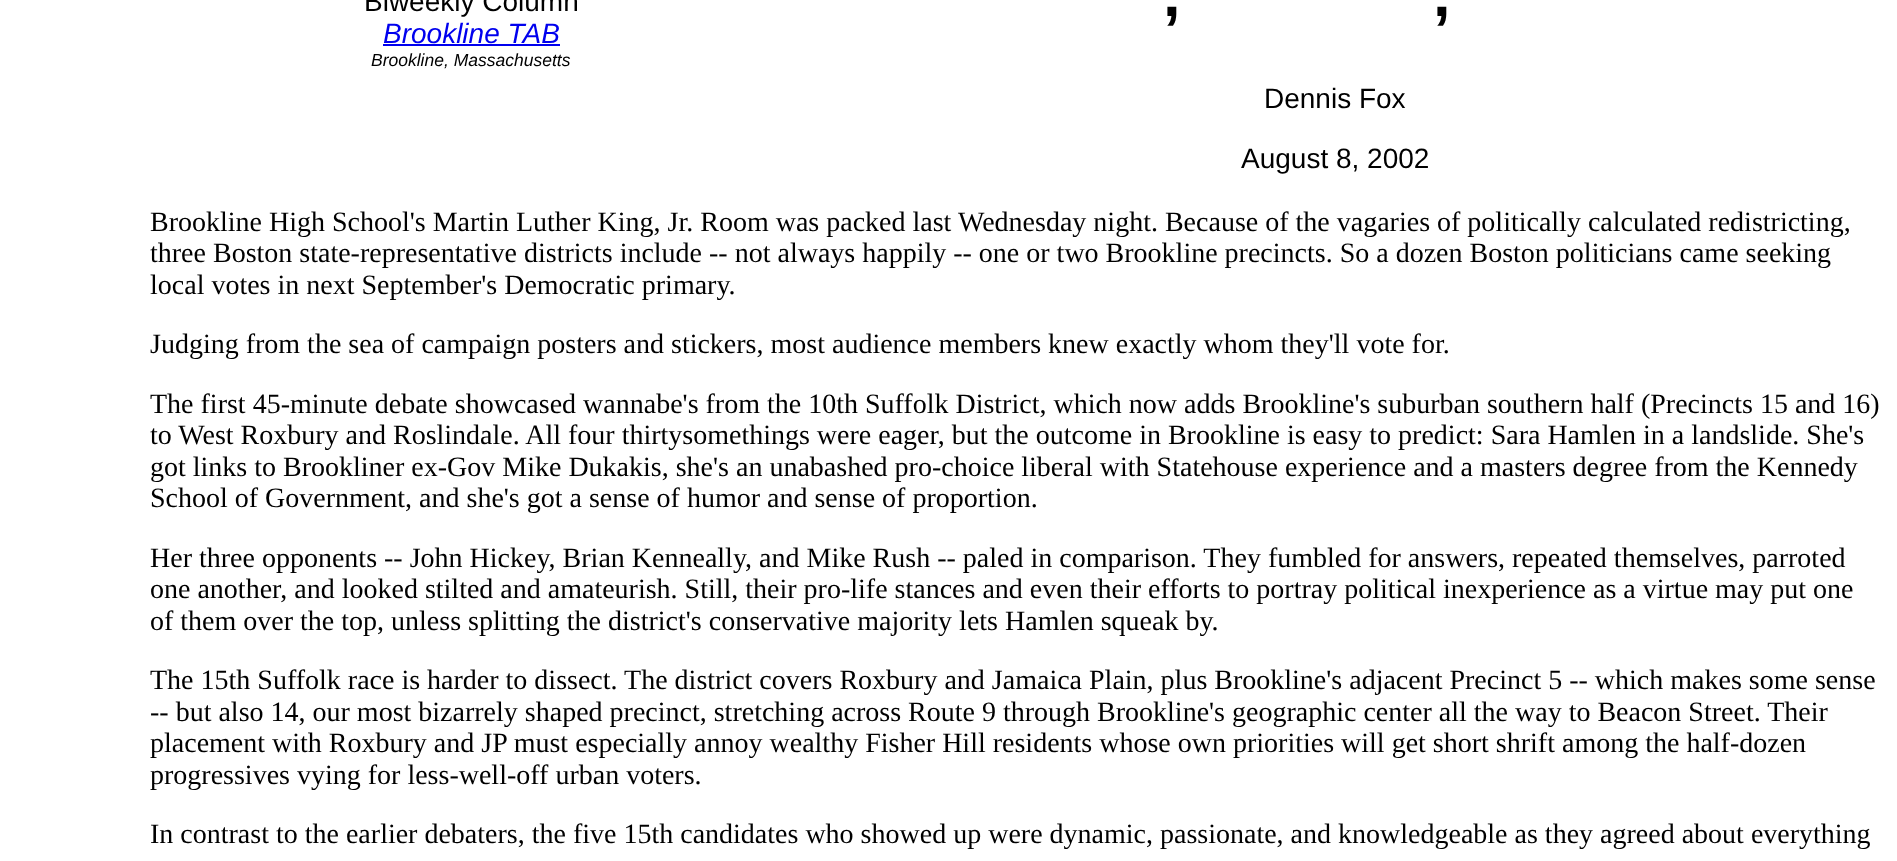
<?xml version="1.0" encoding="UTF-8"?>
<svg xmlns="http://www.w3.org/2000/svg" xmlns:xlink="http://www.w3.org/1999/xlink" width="1897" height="861">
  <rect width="100%" height="100%" fill="#ffffff" />
  <rect x="383" y="44" width="177" height="2" fill="#0000ee" />
  <text x="364" y="11" style="font-family: Liberation Sans; font-size: 28px; fill: #000000">Biweekly Column</text>
  <text x="383" y="43" style="font-family: Liberation Sans; font-size: 28px; font-style: italic; fill: #0000ee">Brookline TAB</text>
  <text x="371" y="66" style="font-family: Liberation Sans; font-size: 17.5px; font-style: italic; fill: #000000">Brookline, Massachusetts</text>
  <text x="1163" y="16" style="font-family: Liberation Sans; font-size: 63px; font-weight: bold; fill: #000000">,</text>
  <text x="1433" y="16" style="font-family: Liberation Sans; font-size: 63px; font-weight: bold; fill: #000000">,</text>
  <text x="1264" y="108" style="font-family: Liberation Sans; font-size: 28px; fill: #000000">Dennis Fox</text>
  <text x="1241" y="168" style="font-family: Liberation Sans; font-size: 28px; fill: #000000">August 8, 2002</text>
  <text x="150" y="231" style="font-family: Liberation Serif; font-size: 28px; fill: #000000">Brookline High School's Martin Luther King, Jr. Room was packed last</text>
  <text x="958" y="231" style="font-family: Liberation Serif; font-size: 28px; fill: #000000">Wednesday night. Because of the vagaries of politically calculated redistricting,</text>
  <text x="150" y="262" style="font-family: Liberation Serif; font-size: 28px; fill: #000000">three Boston state-representative districts include -- not always happily -- one or two Brookline precincts. So a dozen Boston politicians came seeking</text>
  <text x="150" y="294" style="font-family: Liberation Serif; font-size: 28px; fill: #000000">local votes in next September's Democratic primary.</text>
  <text x="150" y="353" style="font-family: Liberation Serif; font-size: 28px; fill: #000000">Judging from the sea of campaign posters and stickers, most audience members knew exactly whom they'll vote for.</text>
  <text x="150" y="413" style="font-family: Liberation Serif; font-size: 28px; fill: #000000">The first 45-minute debate showcased wannabe's from the 10th Suffolk District, which now adds Brookline's suburban southern half (Precincts 15 and 16)</text>
  <text x="150" y="444" style="font-family: Liberation Serif; font-size: 28px; fill: #000000">to West Roxbury and Roslindale. All four thirtysomethings were eager, but the outcome in Brookline is easy to predict: Sara Hamlen in a landslide. She's</text>
  <text x="150" y="476" style="font-family: Liberation Serif; font-size: 28px; fill: #000000">got links to Brookliner ex-Gov Mike Dukakis, she's an unabashed pro-choice liberal with Statehouse experience and a masters degree from the Kennedy</text>
  <text x="150" y="507" style="font-family: Liberation Serif; font-size: 28px; fill: #000000">School of Government, and she's got a sense of humor and sense of proportion.</text>
  <text x="150" y="567" style="font-family: Liberation Serif; font-size: 28px; fill: #000000">Her three opponents -- John Hickey, Brian Kenneally, and Mike Rush -- paled in comparison. They fumbled for answers, repeated themselves, parroted</text>
  <text x="150" y="598" style="font-family: Liberation Serif; font-size: 28px; fill: #000000">one another, and looked stilted and amateurish. Still, their pro-life stances and even their efforts to portray political inexperience as a virtue may put one</text>
  <text x="150" y="630" style="font-family: Liberation Serif; font-size: 28px; fill: #000000">of them over the top, unless splitting the district's conservative majority lets Hamlen squeak by.</text>
  <text x="150" y="689" style="font-family: Liberation Serif; font-size: 28px; fill: #000000">The 15th Suffolk race is harder to dissect. The district covers Roxbury and Jamaica Plain, plus Brookline's adjacent Precinct 5 -- which makes some sense</text>
  <text x="150" y="721" style="font-family: Liberation Serif; font-size: 28px; fill: #000000">-- but also 14, our most bizarrely shaped precinct, stretching across Route 9 through Brookline's geographic center all the way to Beacon Street. Their</text>
  <text x="150" y="752" style="font-family: Liberation Serif; font-size: 28px; fill: #000000">placement with Roxbury and JP must especially annoy wealthy Fisher Hill residents whose own priorities will get short shrift among the half-dozen</text>
  <text x="150" y="784" style="font-family: Liberation Serif; font-size: 28px; fill: #000000">progressives vying for less-well-off urban voters.</text>
  <text x="150" y="843" style="font-family: Liberation Serif; font-size: 28px; fill: #000000">In contrast to the earlier debaters, the five 15th candidates who showed up were dynamic, passionate, and knowledgeable as they agreed about everything</text>
</svg>
